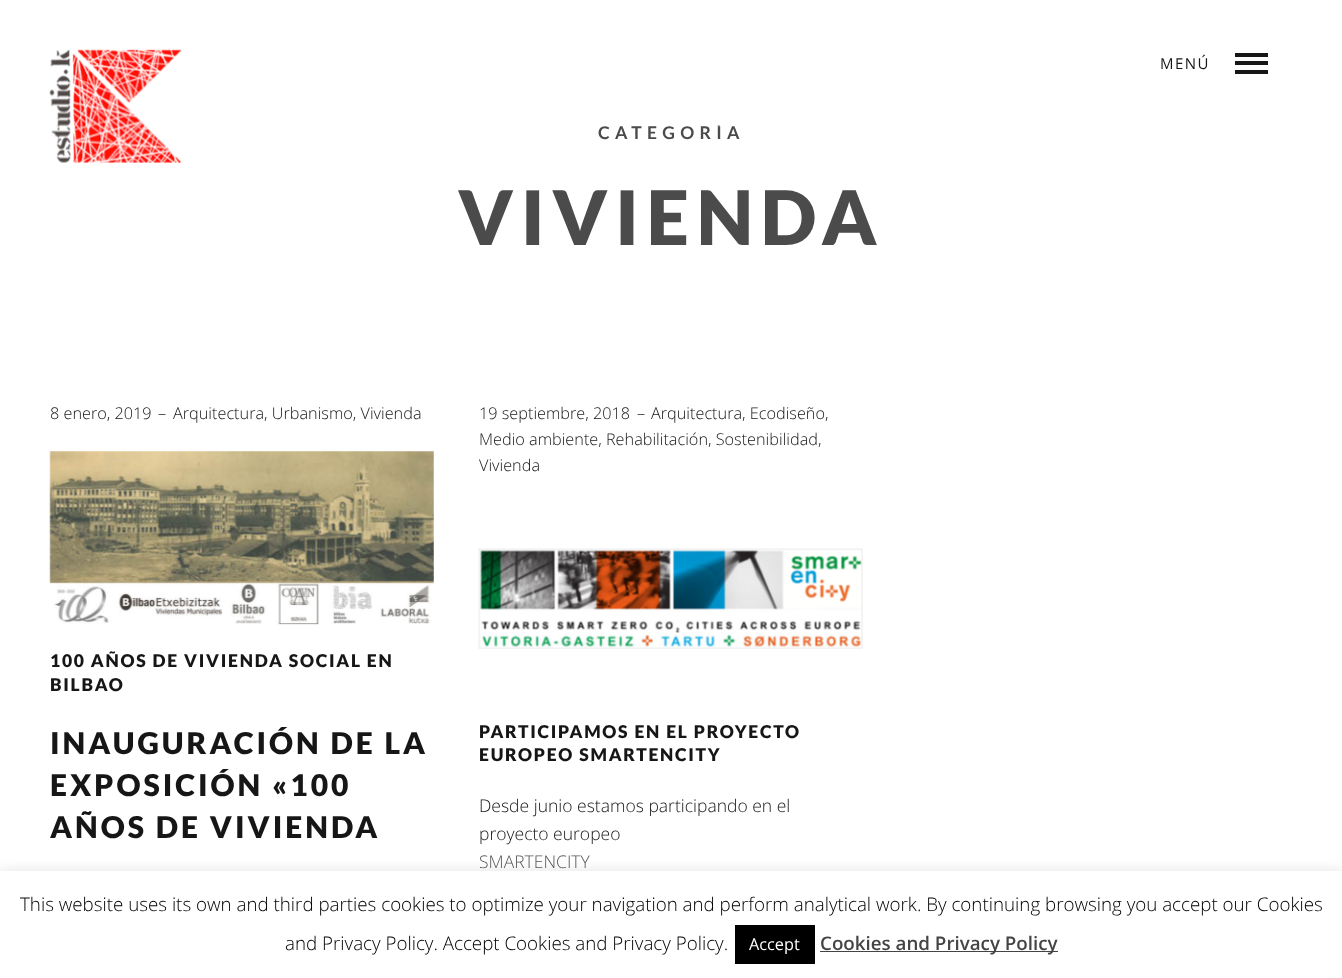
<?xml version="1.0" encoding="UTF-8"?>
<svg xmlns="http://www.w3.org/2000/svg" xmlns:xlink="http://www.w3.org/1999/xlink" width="1342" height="978">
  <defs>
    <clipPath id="clip1"><rect y="125" width="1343" height="150" /></clipPath>
  </defs>
  <rect width="100%" height="100%" fill="#ffffff" />
  <image x="49" y="49" width="133" height="114" xlink:href="image1.png" />
  <rect x="1235" y="57" width="33" height="13" fill="#fcfcfc" />
  <rect x="1235" y="53" width="33" height="4" fill="#171617" />
  <rect x="1235" y="61" width="33" height="4" fill="#171617" />
  <rect x="1235" y="70" width="33" height="4" fill="#171617" />
  <image x="49" y="451" width="385" height="174" xlink:href="image2.png" />
  <image x="478" y="548" width="385" height="101" xlink:href="image3.png" />
  <rect y="870" width="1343" height="108" fill="#acabab" fill-opacity="0.3" filter="blur(6px)" />
  <rect y="871" width="1342" height="107" fill="#ffffff" />
  <rect x="735" y="925" width="80" height="39" fill="#000000" />
  <rect x="820" y="951" width="238" height="1" fill="#444444" />
  <text x="1160" y="69" style="font-family: Open Sans; font-size: 15px; letter-spacing: 1.5px; fill: #171617">MENÚ</text>
  <g clip-path="url(#clip1)">
    <text x="598" y="139" style="font-family: Lato; font-size: 17.5px; font-weight: bold; letter-spacing: 5.25px; fill: #4c4b4c">CATEGORÍA</text>
  </g>
  <text x="458" y="245" style="font-family: Lato; font-size: 75px; font-weight: 900; letter-spacing: 7.5px; fill: #4c4b4c">VIVIENDA</text>
  <text x="50" y="419" style="font-family: Open Sans; font-size: 16.25px; font-weight: 300; fill: #171617">8 enero, 2019</text>
  <text x="158" y="419" style="font-family: Open Sans; font-size: 16.25px; font-weight: 300; fill: #171617">–</text>
  <text x="173" y="419" style="font-family: Open Sans; font-size: 16.25px; font-weight: 300; fill: #171617">Arquitectura, Urbanismo, Vivienda</text>
  <text x="50" y="667" style="font-family: Lato; font-size: 17.5px; font-weight: 900; letter-spacing: 1.75px; fill: #171617">100 AÑOS DE VIVIENDA SOCIAL EN</text>
  <text x="50" y="691" style="font-family: Lato; font-size: 17.5px; font-weight: 900; letter-spacing: 1.75px; fill: #171617">BILBAO</text>
  <text x="50" y="754" style="font-family: Lato; font-size: 30px; font-weight: 900; letter-spacing: 3px; fill: #171617">INAUGURACIÓN DE LA</text>
  <text x="50" y="796" style="font-family: Lato; font-size: 30px; font-weight: 900; letter-spacing: 3px; fill: #171617">EXPOSICIÓN «100</text>
  <text x="50" y="838" style="font-family: Lato; font-size: 30px; font-weight: 900; letter-spacing: 3px; fill: #171617">AÑOS DE VIVIENDA</text>
  <text x="651" y="419" style="font-family: Open Sans; font-size: 16.25px; font-weight: 300; fill: #171617">Arquitectura, Ecodiseño,</text>
  <text x="479" y="445" style="font-family: Open Sans; font-size: 16.25px; font-weight: 300; fill: #171617">Medio ambiente, Rehabilitación, Sostenibilidad,</text>
  <text x="479" y="471" style="font-family: Open Sans; font-size: 16.25px; font-weight: 300; fill: #171617">Vivienda</text>
  <text x="479" y="419" style="font-family: Open Sans; font-size: 16.25px; font-weight: 300; fill: #171617">19 septiembre, 2018</text>
  <text x="637" y="419" style="font-family: Open Sans; font-size: 16.25px; font-weight: 300; fill: #171617">–</text>
  <text x="479" y="738" style="font-family: Lato; font-size: 17.5px; font-weight: 900; letter-spacing: 1.75px; fill: #171617">PARTICIPAMOS EN EL PROYECTO</text>
  <text x="479" y="761" style="font-family: Lato; font-size: 17.5px; font-weight: 900; letter-spacing: 1.75px; fill: #171617">EUROPEO SMARTENCITY</text>
  <text x="479" y="812" style="font-family: Open Sans; font-size: 17.5px; font-weight: 300; fill: #171617">Desde junio estamos participando en el</text>
  <text x="479" y="840" style="font-family: Open Sans; font-size: 17.5px; font-weight: 300; fill: #171617">proyecto europeo</text>
  <text x="479" y="868" style="font-family: Open Sans; font-size: 17.5px; font-weight: 300; fill: #555659">SMARTENCITY</text>
  <text x="20" y="911" style="font-family: Open Sans; font-size: 18.75px; font-weight: 300; fill: #000000">This website uses its own and third parties cookies to optimize your navigation and perform analytical work. By continuing browsing you accept our Cookies</text>
  <text x="285" y="950" style="font-family: Open Sans; font-size: 18.75px; font-weight: 300; fill: #000000">and Privacy Policy. Accept Cookies and Privacy Policy.</text>
  <text x="749" y="950" style="font-family: Open Sans; font-size: 16.25px; fill: #ffffff">Accept</text>
  <text x="820" y="950" style="font-family: Open Sans; font-size: 18.75px; font-weight: 600; fill: #444444">Cookies and Privacy Policy</text>
</svg>
